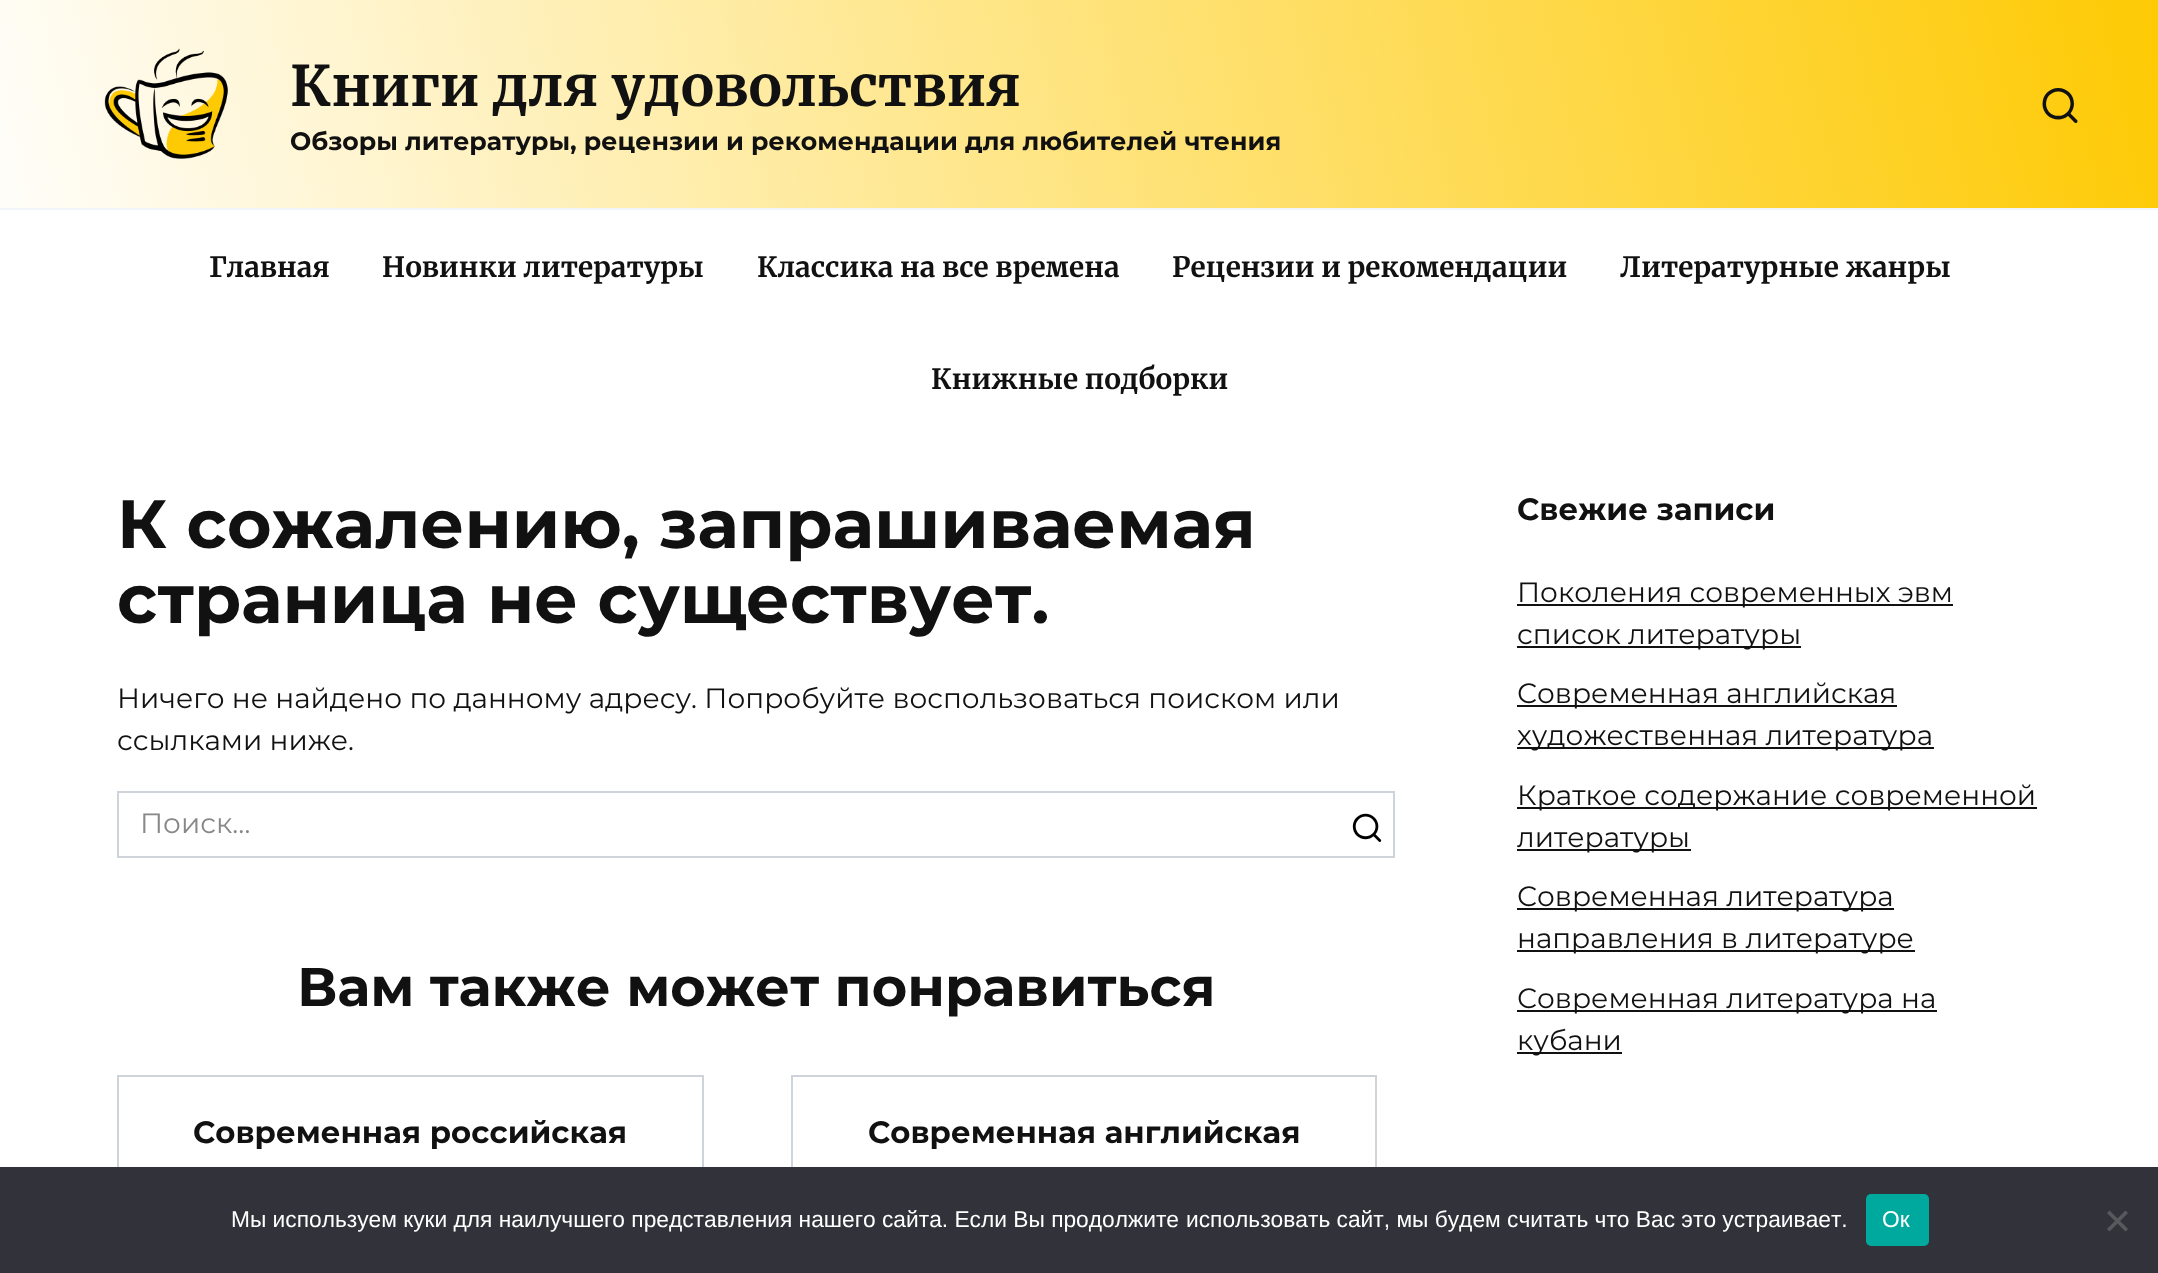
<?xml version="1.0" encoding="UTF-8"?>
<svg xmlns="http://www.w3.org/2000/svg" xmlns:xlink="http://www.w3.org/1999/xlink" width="2158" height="1273">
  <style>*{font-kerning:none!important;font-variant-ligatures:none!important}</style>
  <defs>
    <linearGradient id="g1" gradientUnits="userSpaceOnUse" x1="2128" y1="-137" x2="32" y2="347"><stop offset="0" stop-color="#feca04" /><stop offset="0.99" stop-color="#fffdf7" /></linearGradient>
  </defs>
  <rect width="100%" height="100%" fill="#ffffff" />
  <rect width="2158" height="208" fill="url(#g1)" />
  <rect y="208" width="2158" height="2" fill="#f2f5f9" />
  <image x="104" y="48" width="124" height="111" xlink:href="image1.png" />
  <rect x="118" y="792" width="1276" height="65" fill="none" stroke="#ced4da" stroke-width="2" />
  <rect x="118" y="1076" width="585" height="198" fill="none" stroke="#ced4da" stroke-width="2" />
  <rect x="792" y="1076" width="584" height="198" fill="none" stroke="#ced4da" stroke-width="2" />
  <rect x="1517" y="604" width="436" height="2" fill="#111111" />
  <rect x="1517" y="646" width="284" height="2" fill="#111111" />
  <rect x="1517" y="705" width="380" height="2" fill="#111111" />
  <rect x="1517" y="747" width="417" height="2" fill="#111111" />
  <rect x="1517" y="807" width="520" height="2" fill="#111111" />
  <rect x="1517" y="849" width="174" height="2" fill="#111111" />
  <rect x="1517" y="908" width="377" height="2" fill="#111111" />
  <rect x="1517" y="950" width="398" height="2" fill="#111111" />
  <rect x="1517" y="1010" width="420" height="2" fill="#111111" />
  <rect x="1517" y="1052" width="105" height="2" fill="#111111" />
  <rect y="1167" width="2158" height="106" fill="#32323a" />
  <rect x="1866" y="1194" width="63" height="52" rx="5" fill="#00a99d" />
  <path d="M 2125.5 1210.5 l 2.5 2.5 l -18.5 18.5 l -2.5 -2.5 z" fill="#59595d" />
  <path d="M 2107 1213 l 2.5 -2.5 l 18.5 18.5 l -2.5 2.5 z" fill="#59595d" />
  <text x="290" y="106" style="font-family: Merriweather; font-size: 56px; font-weight: bold; fill: #111111">Книги для удовольствия</text>
  <text x="290" y="150" style="font-family: Montserrat; font-size: 25.2px; font-weight: bold; fill: #111111">Обзоры литературы, рецензии и рекомендации для любителей чтения</text>
  <text x="2039" y="123" style="font-family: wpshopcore; font-size: 42px; fill: #111111">🔍</text>
  <text x="209" y="277" style="font-family: Merriweather; font-size: 28px; font-weight: bold; fill: #111111">Главная</text>
  <text x="382" y="277" style="font-family: Merriweather; font-size: 28px; font-weight: bold; fill: #111111">Новинки литературы</text>
  <text x="757" y="277" style="font-family: Merriweather; font-size: 28px; font-weight: bold; fill: #111111">Классика на все времена</text>
  <text x="1172" y="277" style="font-family: Merriweather; font-size: 28px; font-weight: bold; fill: #111111">Рецензии и рекомендации</text>
  <text x="1620" y="277" style="font-family: Merriweather; font-size: 28px; font-weight: bold; fill: #111111">Литературные жанры</text>
  <text x="931" y="389" style="font-family: Merriweather; font-size: 28px; font-weight: bold; fill: #111111">Книжные подборки</text>
  <text x="117" y="548" style="font-family: Montserrat; font-size: 68.25px; font-weight: bold; fill: #111111">К сожалению, запрашиваемая</text>
  <text x="117" y="623" style="font-family: Montserrat; font-size: 68.25px; font-weight: bold; fill: #111111">страница не существует.</text>
  <text x="117" y="708" style="font-family: Montserrat; font-size: 28px; fill: #111111">Ничего не найдено по данному адресу. Попробуйте воспользоваться поиском или</text>
  <text x="117" y="750" style="font-family: Montserrat; font-size: 28px; fill: #111111">ссылками ниже.</text>
  <text x="140" y="833" style="font-family: Montserrat; font-size: 28px; fill: #888888">Поиск…</text>
  <text x="1350" y="842" style="font-family: wpshopcore; font-size: 34px; fill: #000000">🔍</text>
  <text x="297" y="1006" style="font-family: Montserrat; font-size: 54.25px; font-weight: bold; fill: #111111">Вам также может понравиться</text>
  <text x="193" y="1143" style="font-family: Montserrat; font-size: 30.75px; font-weight: bold; fill: #111111">Современная российская</text>
  <text x="868" y="1143" style="font-family: Montserrat; font-size: 30.75px; font-weight: bold; fill: #111111">Современная английская</text>
  <text x="1517" y="520" style="font-family: Montserrat; font-size: 30.75px; font-weight: bold; fill: #111111">Свежие записи</text>
  <text x="1517" y="602" style="font-family: Montserrat; font-size: 28px; fill: #111111">Поколения современных эвм</text>
  <text x="1517" y="644" style="font-family: Montserrat; font-size: 28px; fill: #111111">список литературы</text>
  <text x="1517" y="703" style="font-family: Montserrat; font-size: 28px; fill: #111111">Современная английская</text>
  <text x="1517" y="745" style="font-family: Montserrat; font-size: 28px; fill: #111111">художественная литература</text>
  <text x="1517" y="805" style="font-family: Montserrat; font-size: 28px; fill: #111111">Краткое содержание современной</text>
  <text x="1517" y="847" style="font-family: Montserrat; font-size: 28px; fill: #111111">литературы</text>
  <text x="1517" y="906" style="font-family: Montserrat; font-size: 28px; fill: #111111">Современная литература</text>
  <text x="1517" y="948" style="font-family: Montserrat; font-size: 28px; fill: #111111">направления в литературе</text>
  <text x="1517" y="1008" style="font-family: Montserrat; font-size: 28px; fill: #111111">Современная литература на</text>
  <text x="1517" y="1050" style="font-family: Montserrat; font-size: 28px; fill: #111111">кубани</text>
  <text x="231" y="1227" style="font-family: Liberation Sans; font-size: 22.75px; fill: #ffffff">Мы используем куки для наилучшего представления нашего сайта. Если Вы продолжите</text>
  <text x="1186" y="1227" style="font-family: Liberation Sans; font-size: 22.75px; fill: #ffffff">использовать сайт, мы будем</text>
  <text x="1507" y="1227" style="font-family: Liberation Sans; font-size: 22.75px; fill: #ffffff">считать что Вас это устраивает.</text>
  <text x="1882" y="1227" style="font-family: Liberation Sans; font-size: 22.75px; fill: #ffffff">Ок</text>
</svg>
